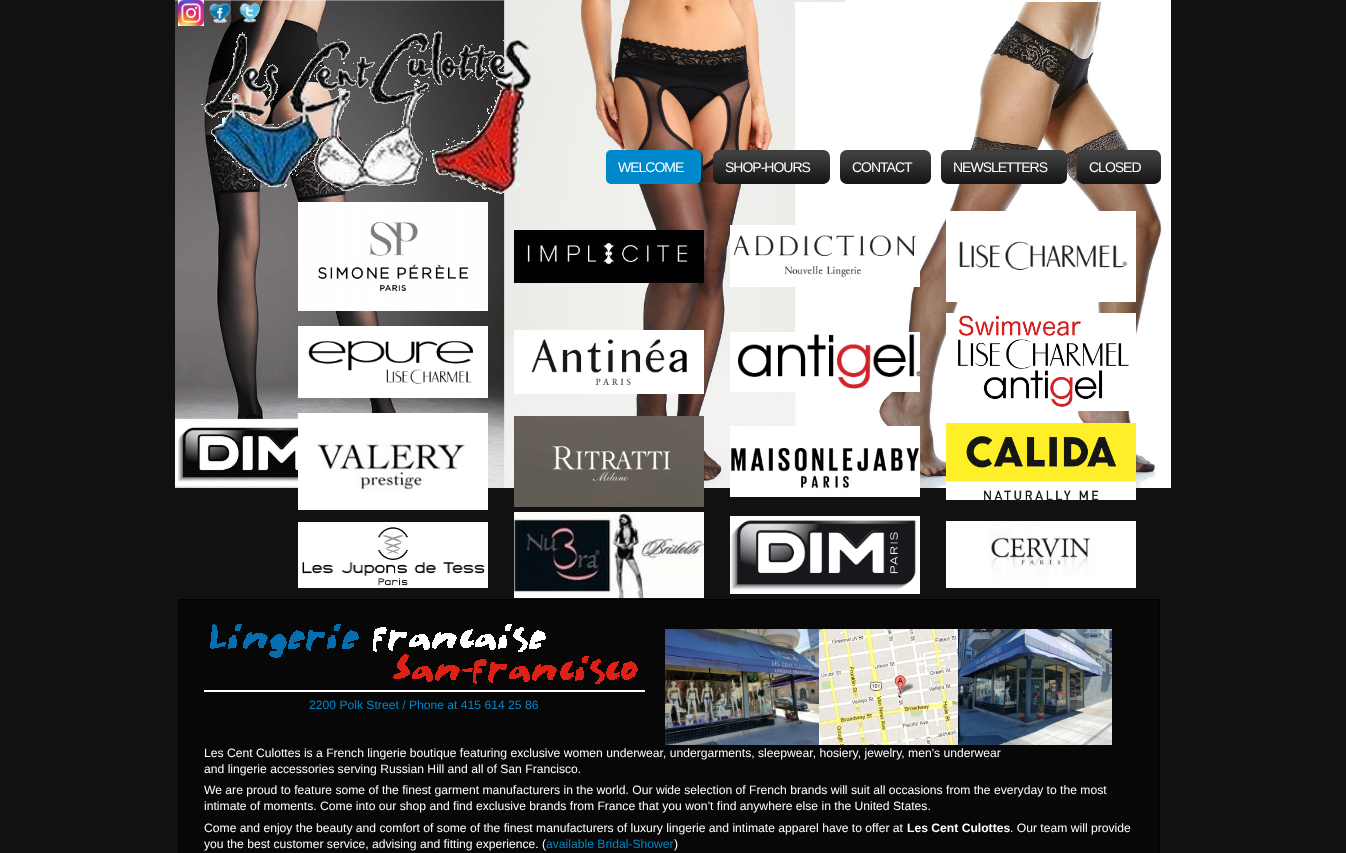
<?xml version="1.0" encoding="UTF-8"?>
<svg xmlns="http://www.w3.org/2000/svg" xmlns:xlink="http://www.w3.org/1999/xlink" width="1346" height="853">
  <rect width="100%" height="100%" fill="#111111" />
  <image x="175" y="0" width="996" height="488" xlink:href="image1.png" />
  <image x="178" y="0" width="26" height="26" xlink:href="image2.png" />
  <image x="209" y="3" width="22" height="21" xlink:href="image3.png" />
  <image x="239" y="2" width="21" height="21" xlink:href="image4.png" />
  <image x="201" y="31" width="330" height="168" xlink:href="image5.png" />
  <rect x="606" y="150" width="97" height="34" rx="7" fill="#000000" />
  <image x="606" y="150" width="97" height="34" xlink:href="image6.png" />
  <rect x="606" y="150" width="95" height="34" rx="5" fill="#0088cc" />
  <rect x="713" y="150" width="117" height="34" rx="7" fill="#000000" />
  <image x="713" y="150" width="117" height="34" xlink:href="image7.png" />
  <rect x="840" y="150" width="91" height="34" rx="7" fill="#000000" />
  <image x="840" y="150" width="91" height="34" xlink:href="image8.png" />
  <rect x="941" y="150" width="126" height="34" rx="7" fill="#000000" />
  <image x="941" y="150" width="126" height="34" xlink:href="image9.png" />
  <rect x="1077" y="150" width="84" height="34" rx="7" fill="#000000" />
  <image x="1077" y="150" width="84" height="34" xlink:href="image10.png" />
  <image x="298" y="202" width="190" height="109" xlink:href="image11.png" />
  <image x="514" y="230" width="190" height="53" xlink:href="image12.png" />
  <image x="730" y="225" width="190" height="62" xlink:href="image13.png" />
  <image x="946" y="211" width="190" height="91" xlink:href="image14.png" />
  <image x="298" y="326" width="190" height="72" xlink:href="image15.png" />
  <image x="514" y="330" width="190" height="64" xlink:href="image16.png" />
  <image x="730" y="332" width="190" height="60" xlink:href="image17.png" />
  <image x="946" y="313" width="190" height="98" xlink:href="image18.png" />
  <image x="298" y="413" width="190" height="97" xlink:href="image19.png" />
  <image x="514" y="416" width="190" height="91" xlink:href="image20.png" />
  <image x="730" y="426" width="190" height="71" xlink:href="image21.png" />
  <image x="946" y="423" width="190" height="77" xlink:href="image22.png" />
  <image x="298" y="522" width="190" height="66" xlink:href="image23.png" />
  <image x="514" y="512" width="190" height="86" xlink:href="image24.png" />
  <image x="730" y="516" width="190" height="78" xlink:href="image25.png" />
  <image x="946" y="521" width="190" height="67" xlink:href="image26.png" />
  <rect x="178.5" y="599.5" width="981" height="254" fill="#070707" stroke="#000000" />
  <image x="204" y="624" width="441" height="68" xlink:href="image27.png" />
  <image x="665" y="629" width="154" height="116" xlink:href="image28.png" />
  <image x="819" y="629" width="139" height="116" xlink:href="image29.png" />
  <image x="958" y="629" width="154" height="116" xlink:href="image30.png" />
  <text x="618" y="172" style="font-family: Liberation Sans; font-size: 14px; letter-spacing: -1px; fill: #ffffff">WELCOME</text>
  <text x="725" y="172" style="font-family: Liberation Sans; font-size: 14px; letter-spacing: -1px; fill: #ffffff">SHOP-HOURS</text>
  <text x="852" y="172" style="font-family: Liberation Sans; font-size: 14px; letter-spacing: -1px; fill: #ffffff">CONTACT</text>
  <text x="953" y="172" style="font-family: Liberation Sans; font-size: 14px; letter-spacing: -1px; fill: #ffffff">NEWSLETTERS</text>
  <text x="1089" y="172" style="font-family: Liberation Sans; font-size: 14px; letter-spacing: -1px; fill: #ffffff">CLOSED</text>
  <text x="309" y="709" style="font-family: Liberation Sans; font-size: 12.15px; fill: #0088cc">2200 Polk Street / Phone at 415 614 25 86</text>
  <text x="204" y="757" style="font-family: Liberation Sans; font-size: 12.15px; fill: #ffffff">Les Cent Culottes is a French lingerie boutique featuring exclusive women underwear, undergarments, sleepwear, hosiery, jewelry, men's underwear</text>
  <text x="204" y="773" style="font-family: Liberation Sans; font-size: 12.15px; fill: #ffffff">and lingerie accessories serving Russian Hill and all of San Francisco.</text>
  <text x="204" y="794" style="font-family: Liberation Sans; font-size: 12.15px; fill: #ffffff">We are proud to feature some of the finest garment manufacturers in the world. Our wide selection of French brands will suit all occasions from the everyday to the most</text>
  <text x="204" y="810" style="font-family: Liberation Sans; font-size: 12.15px; fill: #ffffff">intimate of moments. Come into our shop and find exclusive brands from France that you won’t find anywhere else in the United States.</text>
  <text x="204" y="832" style="font-family: Liberation Sans; font-size: 12.15px; fill: #ffffff">Come and enjoy the beauty and comfort of some of the finest manufacturers of luxury lingerie and intimate apparel have to offer at</text>
  <text x="907" y="832" style="font-family: Liberation Sans; font-size: 12.15px; font-weight: bold; fill: #ffffff">Les Cent Culottes</text>
  <text x="1010" y="832" style="font-family: Liberation Sans; font-size: 12.15px; fill: #ffffff">. Our team will provide</text>
  <text x="204" y="848" style="font-family: Liberation Sans; font-size: 12.15px; fill: #ffffff">you the best customer service, advising and fitting experience. (</text>
  <text x="546" y="848" style="font-family: Liberation Sans; font-size: 12.15px; fill: #0088cc">available Bridal-Shower</text>
  <text x="674" y="848" style="font-family: Liberation Sans; font-size: 12.15px; fill: #ffffff">)</text>
</svg>
